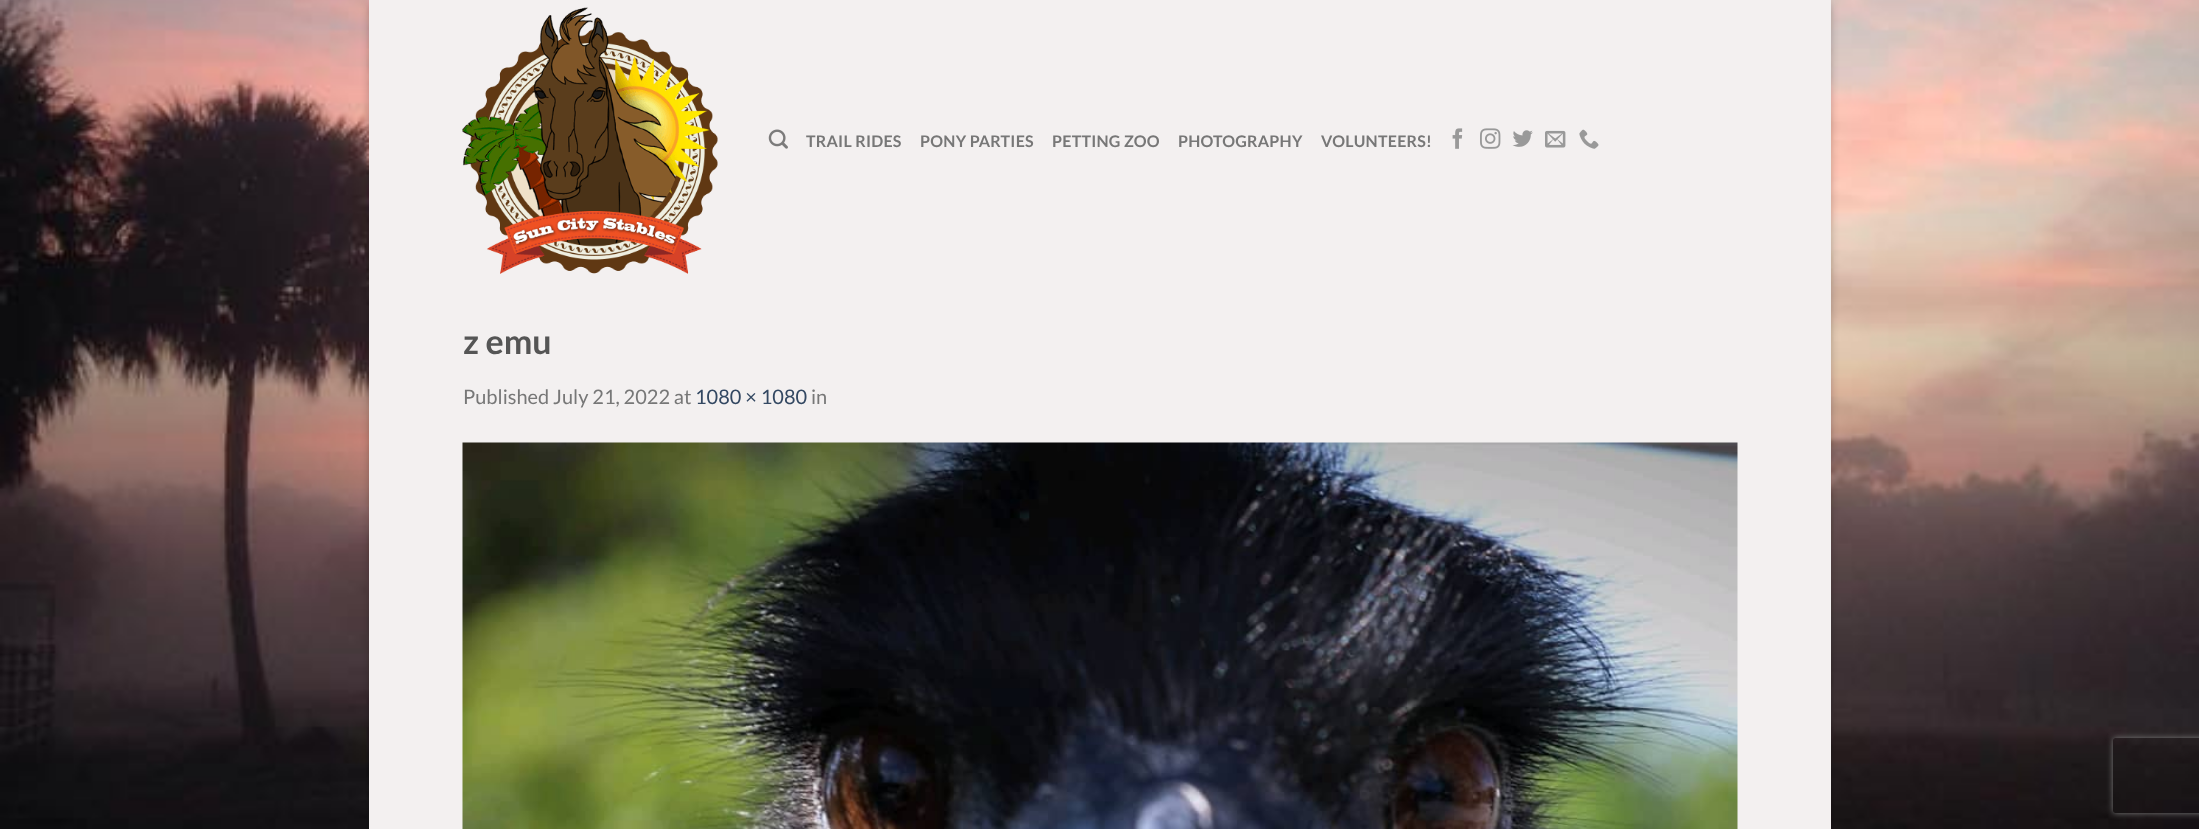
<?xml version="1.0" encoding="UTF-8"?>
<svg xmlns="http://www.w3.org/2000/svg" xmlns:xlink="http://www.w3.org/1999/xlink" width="2199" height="829">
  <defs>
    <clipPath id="clip1"><path d="M 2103 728 h 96 v 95 h -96 z m 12.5 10 h 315 c 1.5 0 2.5 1 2.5 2.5 v 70 c 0 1.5 -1 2.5 -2.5 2.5 h -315 c -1.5 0 -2.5 -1 -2.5 -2.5 v -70 c 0 -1.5 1 -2.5 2.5 -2.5 z" clip-rule="evenodd" /></clipPath>
  </defs>
  <rect width="100%" height="100%" fill="#ffffff" />
  <image x="0" y="0" width="2199" height="829" xlink:href="image1.png" />
  <rect x="369" y="4" width="1462" height="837" fill="#000000" fill-opacity="0.23" filter="blur(4px)" />
  <rect x="369" width="1462" height="829" fill="#f3f0f0" />
  <image x="462" y="7" width="256" height="267" xlink:href="image2.png" />
  <image x="768" y="129" width="20" height="20" xlink:href="image3.png" />
  <image x="1452" y="128" width="11" height="21" xlink:href="image4.png" />
  <image x="1480" y="128" width="21" height="21" xlink:href="image5.png" />
  <image x="1512" y="130" width="21" height="17" xlink:href="image6.png" />
  <image x="1545" y="130" width="21" height="18" xlink:href="image7.png" />
  <image x="1579" y="129" width="20" height="20" xlink:href="image8.png" />
  <image x="462" y="442" width="1276" height="387" xlink:href="image9.png" />
  <g clip-path="url(#clip1)">
    <rect x="2113" y="738" width="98" height="75" rx="2.5" fill="#808080" filter="blur(3px)" />
  </g>
  <text x="806" y="147" style="font-family: Lato; font-size: 16px; font-weight: bold; letter-spacing: 0.25px; fill: #777777">TRAIL RIDES</text>
  <text x="920" y="147" style="font-family: Lato; font-size: 16px; font-weight: bold; letter-spacing: 0.25px; fill: #777777">PONY PARTIES</text>
  <text x="1052" y="147" style="font-family: Lato; font-size: 16px; font-weight: bold; letter-spacing: 0.25px; fill: #777777">PETTING ZOO</text>
  <text x="1178" y="147" style="font-family: Lato; font-size: 16px; font-weight: bold; letter-spacing: 0.25px; fill: #777777">PHOTOGRAPHY</text>
  <text x="1321" y="147" style="font-family: Lato; font-size: 16px; font-weight: bold; letter-spacing: 0.25px; fill: #777777">VOLUNTEERS!</text>
  <text x="463" y="354" style="font-family: Lato; font-size: 34px; font-weight: bold; fill: #555555">z emu</text>
  <text x="463" y="404" style="font-family: Lato; font-size: 20px; fill: #777777">Published July 21, 2022 at</text>
  <text x="695" y="404" style="font-family: Lato; font-size: 20px; fill: #334862">1080 × 1080</text>
  <text x="811" y="404" style="font-family: Lato; font-size: 20px; fill: #777777">in</text>
</svg>
